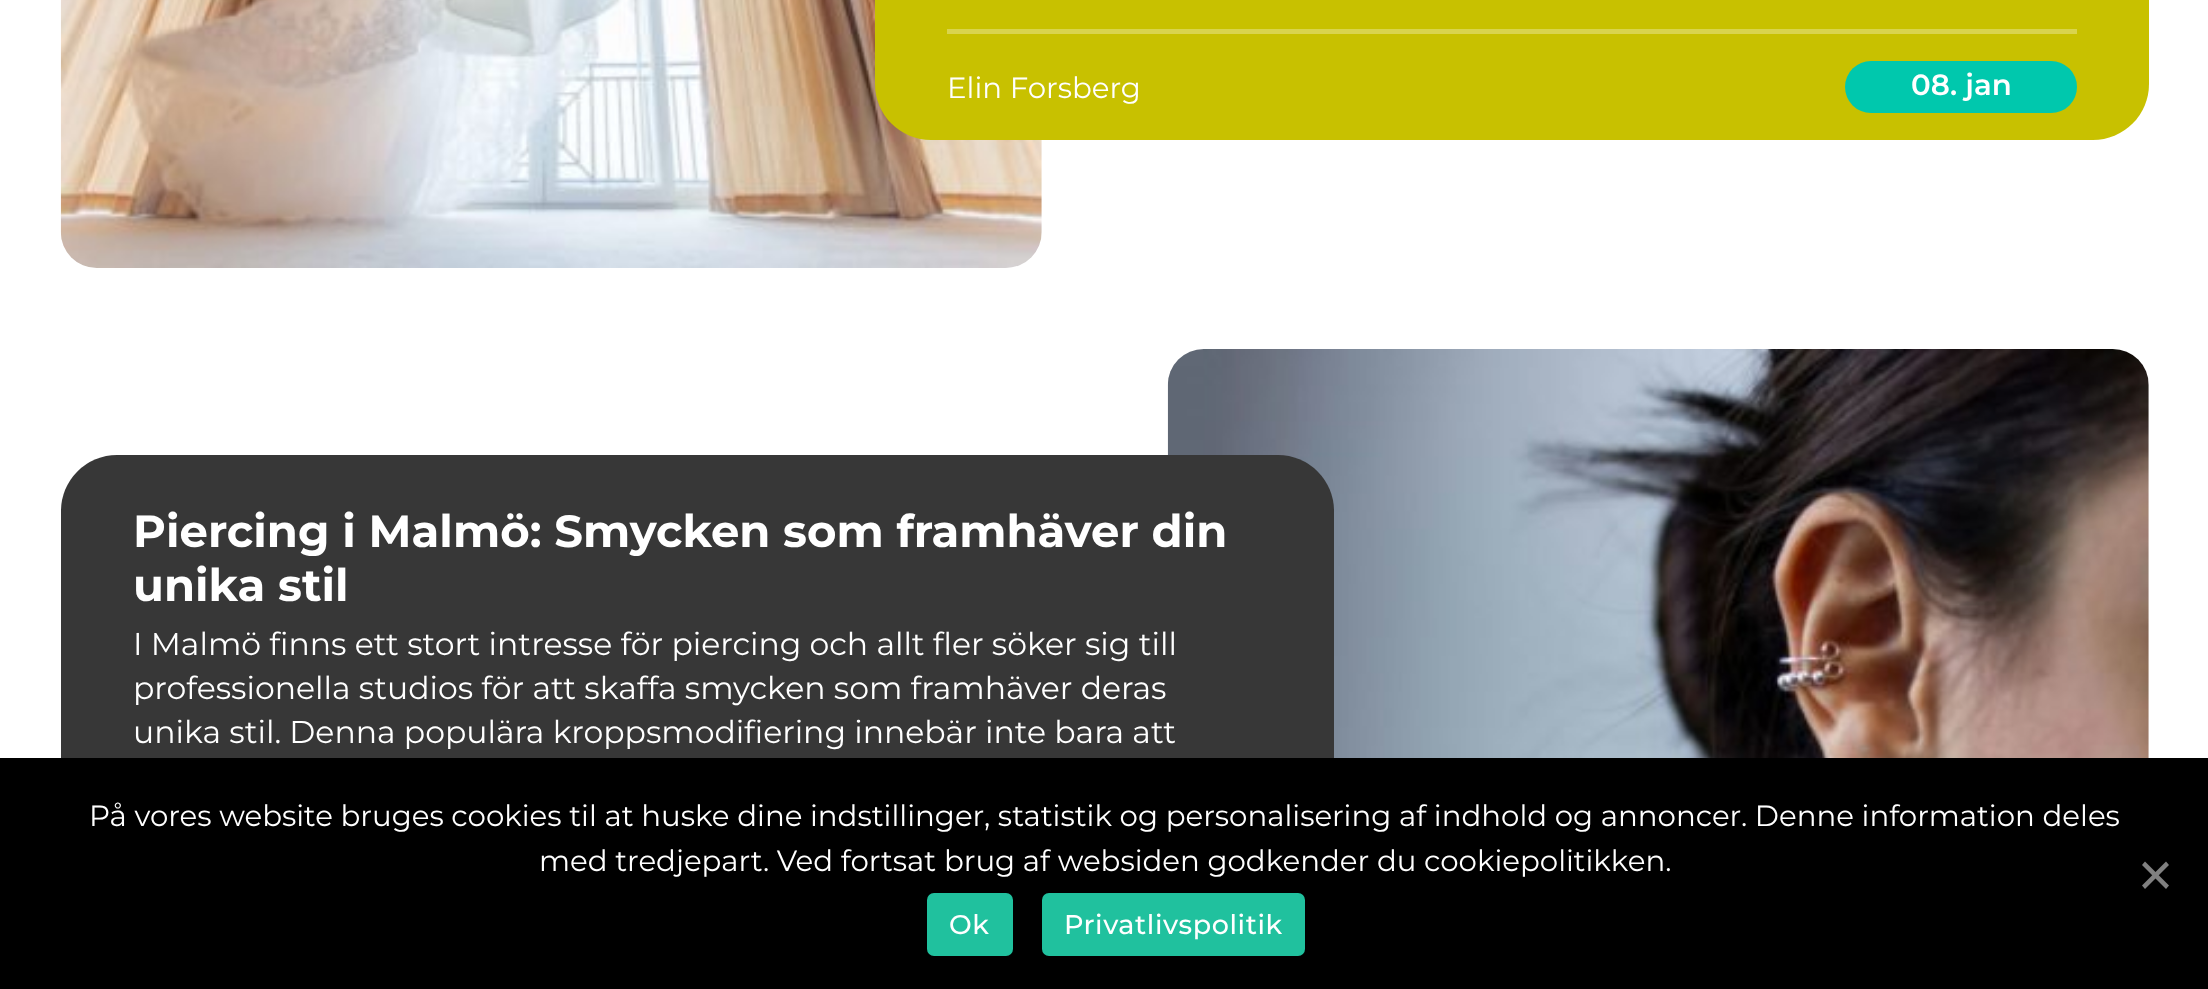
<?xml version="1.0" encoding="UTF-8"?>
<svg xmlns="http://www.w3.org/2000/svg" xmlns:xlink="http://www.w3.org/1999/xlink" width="2208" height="989">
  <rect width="100%" height="100%" fill="#ffffff" />
  <image x="60" y="0" width="982" height="268" xlink:href="image1.png" />
  <rect x="875" y="-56" width="1274" height="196" rx="56" fill="#c8c100" />
  <rect x="947" y="29" width="1130" height="5" fill="#d9d44d" />
  <rect x="1845" y="61" width="232" height="52" rx="26" fill="#00c8ad" />
  <image x="1167" y="349" width="982" height="409" xlink:href="image2.png" />
  <rect x="61" y="455" width="1273" height="490" rx="56" fill="#373737" />
  <rect y="758" width="2208" height="231" fill="#000000" />
  <path d="M 2166 861.5 l 3 3.5 l -24 24 l -3 -3.5 z" fill="#808080" />
  <path d="M 2142 865 l 3 -3.5 l 24 24 l -3 3.5 z" fill="#808080" />
  <rect x="927" y="893" width="86" height="63" rx="7" fill="#20c19e" />
  <rect x="1042" y="893" width="263" height="63" rx="7" fill="#20c19e" />
  <text x="947" y="98" style="font-family: Montserrat; font-size: 29.25px; fill: #ffffff">Elin Forsberg</text>
  <text x="1911" y="95" style="font-family: Montserrat; font-size: 29.25px; font-weight: 600; fill: #ffffff">08. jan</text>
  <text x="133" y="547" style="font-family: Montserrat; font-size: 45px; font-weight: bold; fill: #ffffff">Piercing i Malmö: Smycken som framhäver din</text>
  <text x="133" y="601" style="font-family: Montserrat; font-size: 45px; font-weight: bold; fill: #ffffff">unika stil</text>
  <text x="133" y="655" style="font-family: Montserrat; font-size: 31.5px; fill: #ffffff">I Malmö finns ett stort intresse för piercing och allt fler söker sig till</text>
  <text x="133" y="699" style="font-family: Montserrat; font-size: 31.5px; fill: #ffffff">professionella studios för att skaffa smycken som framhäver deras</text>
  <text x="133" y="743" style="font-family: Montserrat; font-size: 31.5px; fill: #ffffff">unika stil. Denna populära kroppsmodifiering innebär inte bara att</text>
  <text x="89" y="826" style="font-family: Montserrat; font-size: 29.25px; fill: #ffffff">På vores website bruges cookies til at huske dine indstillinger, statistik og personalisering af indhold og annoncer. Denne information deles</text>
  <text x="539" y="871" style="font-family: Montserrat; font-size: 29.25px; fill: #ffffff">med tredjepart. Ved fortsat brug af websiden godkender du cookiepolitikken.</text>
  <text x="949" y="934" style="font-family: Montserrat; font-size: 27px; font-weight: 500; letter-spacing: 0.6px; fill: #ffffff">Ok</text>
  <text x="1064" y="934" style="font-family: Montserrat; font-size: 27px; font-weight: 500; letter-spacing: 0.6px; fill: #ffffff">Privatlivspolitik</text>
</svg>
